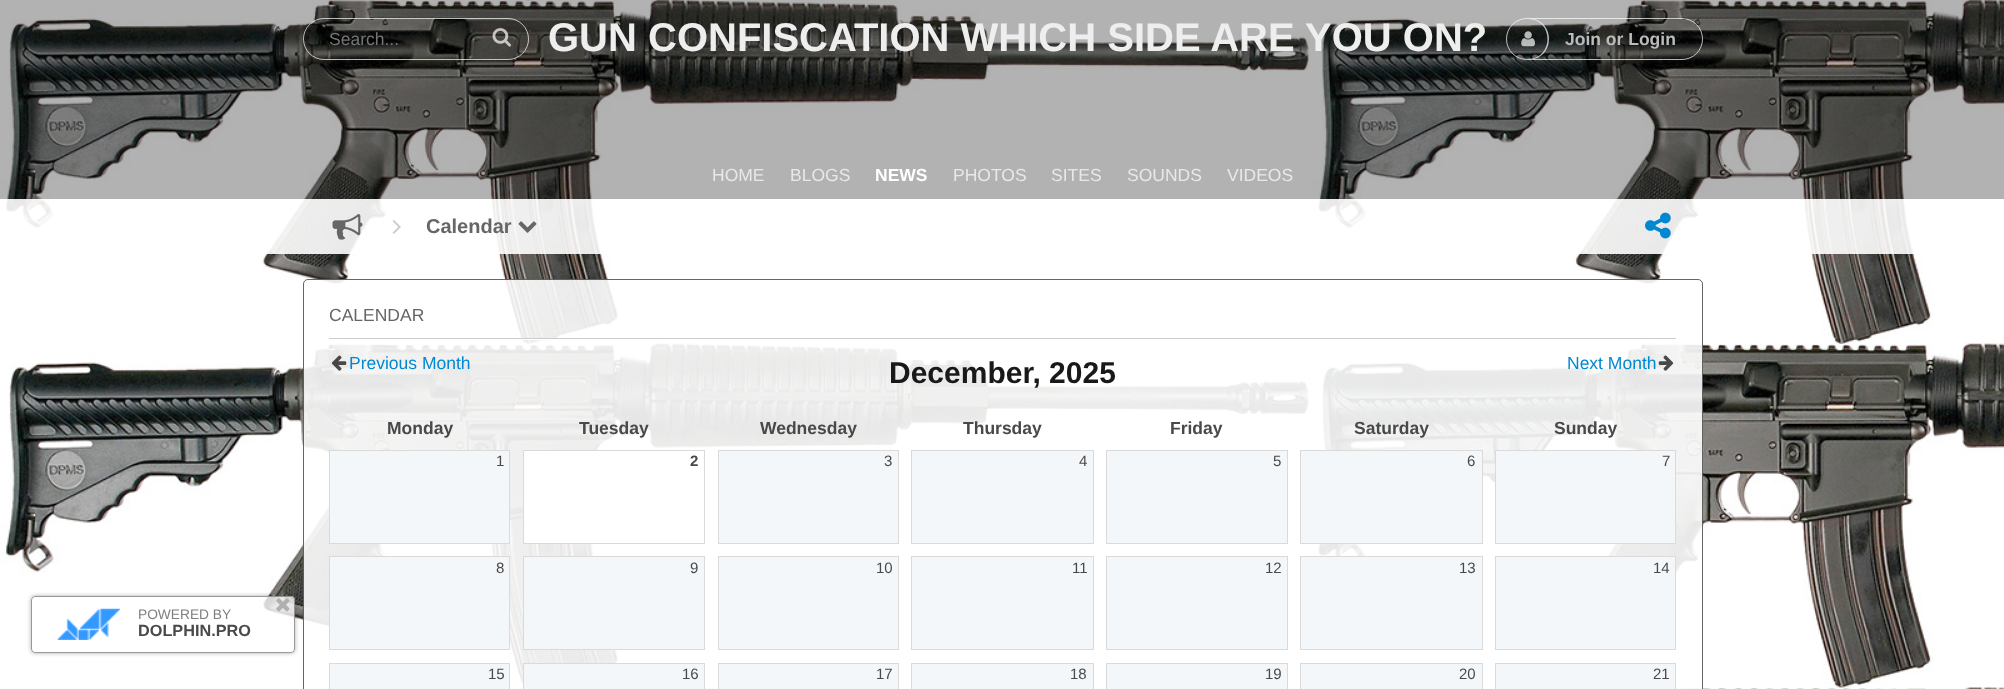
<?xml version="1.0" encoding="UTF-8"?>
<svg xmlns="http://www.w3.org/2000/svg" xmlns:xlink="http://www.w3.org/1999/xlink" width="2004" height="689">
  <defs>
    <clipPath id="clip1"><path d="M 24 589 h 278 v 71 h -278 z m 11 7 h 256 c 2 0 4 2 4 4 v 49 c 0 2 -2 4 -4 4 h -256 c -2 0 -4 -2 -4 -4 v -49 c 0 -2 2 -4 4 -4 z" clip-rule="evenodd" /></clipPath>
  </defs>
  <rect width="100%" height="100%" fill="#ffffff" />
  <image x="0" y="0" width="2004" height="689" xlink:href="image1.png" />
  <rect width="2004" height="151" fill="#000000" fill-opacity="0.3" />
  <rect x="303.5" y="18.5" width="225" height="41" rx="20.5" fill="none" stroke="#ffffff" stroke-opacity="0.7" />
  <image x="492" y="28" width="19" height="19" xlink:href="image2.png" />
  <rect x="1506.5" y="18.5" width="196" height="41" rx="20.5" fill="none" stroke="#ffffff" stroke-opacity="0.7" />
  <path d="M 1528 19 h 6 c 20 5 20 35 0 40 h -6 c 26 0 26 -40 0 -40 z" fill="#ffffff" fill-opacity="0.7" />
  <image x="1521" y="31" width="14" height="16" xlink:href="image3.png" />
  <rect y="151" width="2004" height="48" fill="#000000" fill-opacity="0.3" />
  <rect y="199" width="1923" height="55" fill="#ffffff" fill-opacity="0.9" />
  <image x="332" y="214" width="31" height="26" xlink:href="image4.png" />
  <image x="392" y="220" width="9" height="14" xlink:href="image5.png" />
  <image x="518" y="221" width="19" height="12" xlink:href="image6.png" />
  <image x="1645" y="212" width="26" height="27" xlink:href="image7.png" />
  <g clip-path="url(#clip1)">
    <rect x="31" y="596" width="264" height="57" rx="4" fill="#333333" fill-opacity="0.4" filter="blur(2px)" />
  </g>
  <rect x="31" y="596" width="264" height="57" rx="4" fill="#ffffff" fill-opacity="0.8" />
  <rect x="31.5" y="596.5" width="263" height="56" rx="3.5" fill="none" stroke="#808080" stroke-opacity="0.8" />
  <image x="276" y="598" width="14" height="14" xlink:href="image8.png" />
  <image x="57" y="608" width="63" height="32" xlink:href="image9.png" />
  <rect x="303" y="279" width="1400" height="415" rx="5" fill="#ffffff" fill-opacity="0.9" />
  <rect x="303.5" y="279.5" width="1399" height="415" rx="4.5" fill="none" stroke="#000000" stroke-opacity="0.6" />
  <rect x="329" y="338" width="1347" height="1" fill="#cccccc" />
  <rect x="522" y="339" width="31" height="1" fill="#ffffff" />
  <image x="331" y="355" width="16" height="16" xlink:href="image10.png" />
  <image x="1658" y="355" width="16" height="16" xlink:href="image11.png" />
  <rect x="329.5" y="450.5" width="180" height="93" fill="#f4f7fa" stroke="#dadada" />
  <rect x="524" y="451" width="76" height="92" fill="#ffffff" />
  <rect x="523.5" y="450.5" width="181" height="93" fill="none" stroke="#dadada" />
  <rect x="718.5" y="450.5" width="180" height="93" fill="#f4f7fa" stroke="#dadada" />
  <rect x="911.5" y="450.5" width="182" height="93" fill="#f4f7fa" stroke="#dadada" />
  <rect x="1106.5" y="450.5" width="181" height="93" fill="#f4f7fa" stroke="#dadada" />
  <rect x="1300.5" y="450.5" width="182" height="93" fill="#f4f7fa" stroke="#dadada" />
  <rect x="1495.5" y="450.5" width="180" height="93" fill="#f4f7fa" stroke="#dadada" />
  <rect x="329.5" y="556.5" width="180" height="93" fill="#f4f7fa" stroke="#dadada" />
  <rect x="523.5" y="556.5" width="181" height="93" fill="#f4f7fa" stroke="#dadada" />
  <rect x="718.5" y="556.5" width="180" height="93" fill="#f4f7fa" stroke="#dadada" />
  <rect x="911.5" y="556.5" width="182" height="93" fill="#f4f7fa" stroke="#dadada" />
  <rect x="1106.5" y="556.5" width="181" height="93" fill="#f4f7fa" stroke="#dadada" />
  <rect x="1300.5" y="556.5" width="182" height="93" fill="#f4f7fa" stroke="#dadada" />
  <rect x="1495.5" y="556.5" width="180" height="93" fill="#f4f7fa" stroke="#dadada" />
  <rect x="329.5" y="663.5" width="180" height="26" fill="#f4f7fa" stroke="#dadada" />
  <rect x="523.5" y="663.5" width="181" height="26" fill="#f4f7fa" stroke="#dadada" />
  <rect x="718.5" y="663.5" width="180" height="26" fill="#f4f7fa" stroke="#dadada" />
  <rect x="911.5" y="663.5" width="182" height="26" fill="#f4f7fa" stroke="#dadada" />
  <rect x="1106.5" y="663.5" width="181" height="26" fill="#f4f7fa" stroke="#dadada" />
  <rect x="1300.5" y="663.5" width="182" height="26" fill="#f4f7fa" stroke="#dadada" />
  <rect x="1495.5" y="663.5" width="180" height="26" fill="#f4f7fa" stroke="#dadada" />
  <text x="329" y="45" style="font-family: Liberation Sans; font-size: 17.5px; fill: #757575">Search...</text>
  <text x="548" y="51" style="font-family: Liberation Sans; font-size: 40px; font-weight: bold; fill: #eeeeee">GUN CONFISCATION WHICH SIDE ARE YOU ON?</text>
  <text x="1565" y="45" style="font-family: Liberation Sans; font-size: 17.5px; font-weight: bold; fill: #babbba">Join or Login</text>
  <text x="712" y="181" style="font-family: Liberation Sans; font-size: 17.5px; fill: #e8e8e8">HOME</text>
  <text x="790" y="181" style="font-family: Liberation Sans; font-size: 17.5px; fill: #e8e8e8">BLOGS</text>
  <text x="875" y="181" style="font-family: Liberation Sans; font-size: 17.5px; font-weight: bold; fill: #ffffff">NEWS</text>
  <text x="953" y="181" style="font-family: Liberation Sans; font-size: 17.5px; fill: #e8e8e8">PHOTOS</text>
  <text x="1051" y="181" style="font-family: Liberation Sans; font-size: 17.5px; fill: #e8e8e8">SITES</text>
  <text x="1127" y="181" style="font-family: Liberation Sans; font-size: 17.5px; fill: #e8e8e8">SOUNDS</text>
  <text x="1227" y="181" style="font-family: Liberation Sans; font-size: 17.5px; fill: #e8e8e8">VIDEOS</text>
  <text x="426" y="233" style="font-family: Liberation Sans; font-size: 20px; font-weight: bold; fill: #666666">Calendar</text>
  <text x="138" y="619" style="font-family: Liberation Sans; font-size: 13.75px; fill: #7f7f7f">POWERED BY</text>
  <text x="138" y="636" style="font-family: Liberation Sans; font-size: 16.25px; font-weight: bold; fill: #494949">DOLPHIN.PRO</text>
  <text x="329" y="321" style="font-family: Liberation Sans; font-size: 17.5px; fill: #666666">CALENDAR</text>
  <text x="349" y="369" style="font-family: Liberation Sans; font-size: 17.5px; fill: #0288d1">Previous Month</text>
  <text x="889" y="383" style="font-family: Liberation Sans; font-size: 30px; font-weight: bold; fill: #191919">December, 2025</text>
  <text x="1567" y="369" style="font-family: Liberation Sans; font-size: 17.5px; fill: #0288d1">Next Month</text>
  <text x="387" y="434" style="font-family: Liberation Sans; font-size: 17.5px; font-weight: bold; fill: #494949">Monday</text>
  <text x="579" y="434" style="font-family: Liberation Sans; font-size: 17.5px; font-weight: bold; fill: #494949">Tuesday</text>
  <text x="760" y="434" style="font-family: Liberation Sans; font-size: 17.5px; font-weight: bold; fill: #494949">Wednesday</text>
  <text x="963" y="434" style="font-family: Liberation Sans; font-size: 17.5px; font-weight: bold; fill: #494949">Thursday</text>
  <text x="1170" y="434" style="font-family: Liberation Sans; font-size: 17.5px; font-weight: bold; fill: #494949">Friday</text>
  <text x="1354" y="434" style="font-family: Liberation Sans; font-size: 17.5px; font-weight: bold; fill: #494949">Saturday</text>
  <text x="1554" y="434" style="font-family: Liberation Sans; font-size: 17.5px; font-weight: bold; fill: #494949">Sunday</text>
  <text x="496" y="466" style="font-family: Liberation Sans; font-size: 15px; fill: #494949">1</text>
  <text x="690" y="466" style="font-family: Liberation Sans; font-size: 15px; font-weight: bold; fill: #494949">2</text>
  <text x="884" y="466" style="font-family: Liberation Sans; font-size: 15px; fill: #494949">3</text>
  <text x="1079" y="466" style="font-family: Liberation Sans; font-size: 15px; fill: #494949">4</text>
  <text x="1273" y="466" style="font-family: Liberation Sans; font-size: 15px; fill: #494949">5</text>
  <text x="1467" y="466" style="font-family: Liberation Sans; font-size: 15px; fill: #494949">6</text>
  <text x="1662" y="466" style="font-family: Liberation Sans; font-size: 15px; fill: #494949">7</text>
  <text x="496" y="573" style="font-family: Liberation Sans; font-size: 15px; fill: #494949">8</text>
  <text x="690" y="573" style="font-family: Liberation Sans; font-size: 15px; fill: #494949">9</text>
  <text x="876" y="573" style="font-family: Liberation Sans; font-size: 15px; fill: #494949">10</text>
  <text x="1072" y="573" style="font-family: Liberation Sans; font-size: 15px; fill: #494949">11</text>
  <text x="1265" y="573" style="font-family: Liberation Sans; font-size: 15px; fill: #494949">12</text>
  <text x="1459" y="573" style="font-family: Liberation Sans; font-size: 15px; fill: #494949">13</text>
  <text x="1653" y="573" style="font-family: Liberation Sans; font-size: 15px; fill: #494949">14</text>
  <text x="488" y="679" style="font-family: Liberation Sans; font-size: 15px; fill: #494949">15</text>
  <text x="682" y="679" style="font-family: Liberation Sans; font-size: 15px; fill: #494949">16</text>
  <text x="876" y="679" style="font-family: Liberation Sans; font-size: 15px; fill: #494949">17</text>
  <text x="1070" y="679" style="font-family: Liberation Sans; font-size: 15px; fill: #494949">18</text>
  <text x="1265" y="679" style="font-family: Liberation Sans; font-size: 15px; fill: #494949">19</text>
  <text x="1459" y="679" style="font-family: Liberation Sans; font-size: 15px; fill: #494949">20</text>
  <text x="1653" y="679" style="font-family: Liberation Sans; font-size: 15px; fill: #494949">21</text>
</svg>
